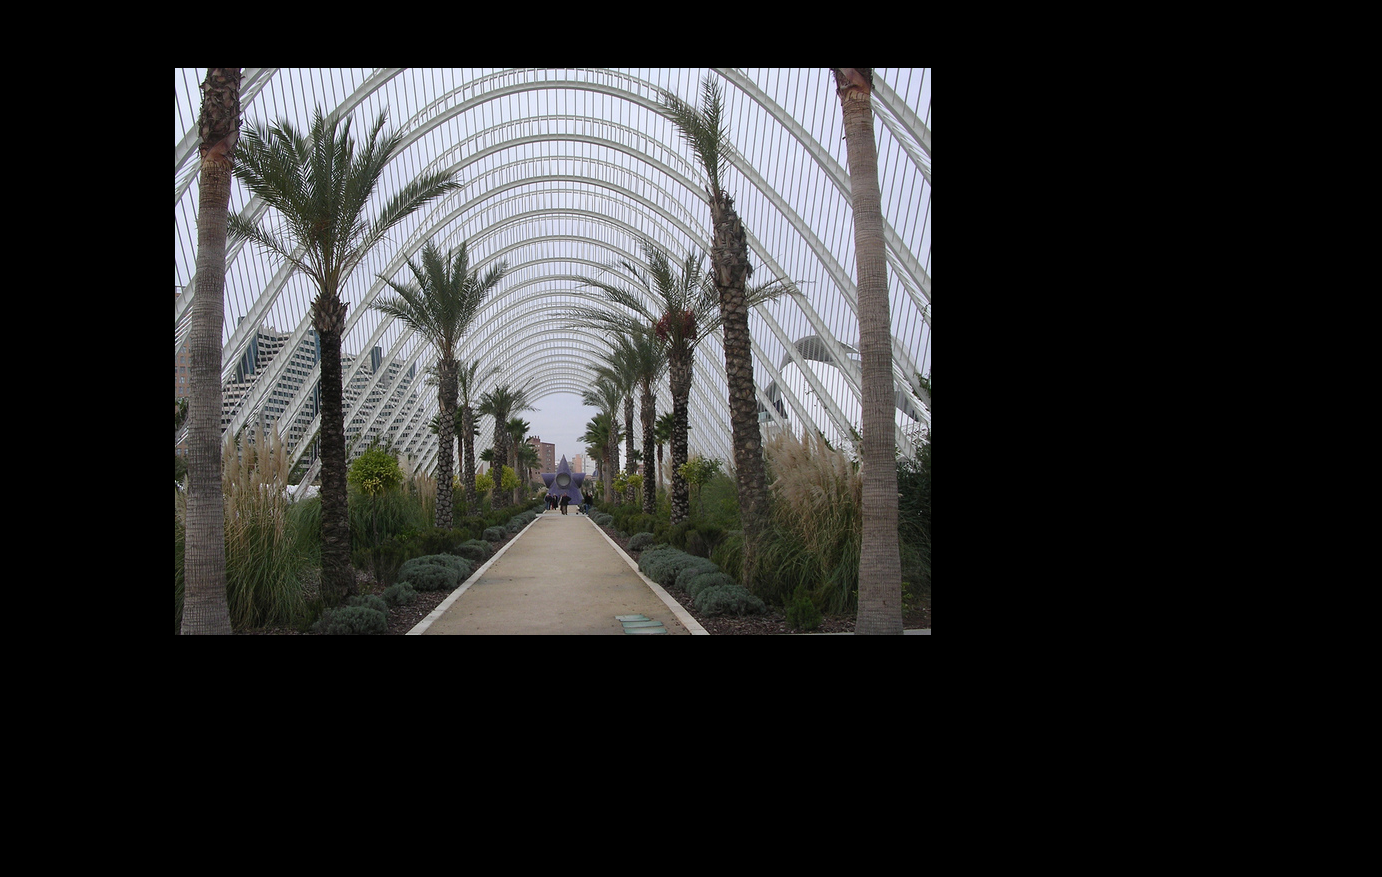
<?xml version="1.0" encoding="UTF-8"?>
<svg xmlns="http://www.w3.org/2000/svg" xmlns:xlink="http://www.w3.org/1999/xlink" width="1382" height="877">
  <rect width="100%" height="100%" fill="#000000" />
  <image x="175" y="68" width="756" height="567" xlink:href="image1.png" />
</svg>
